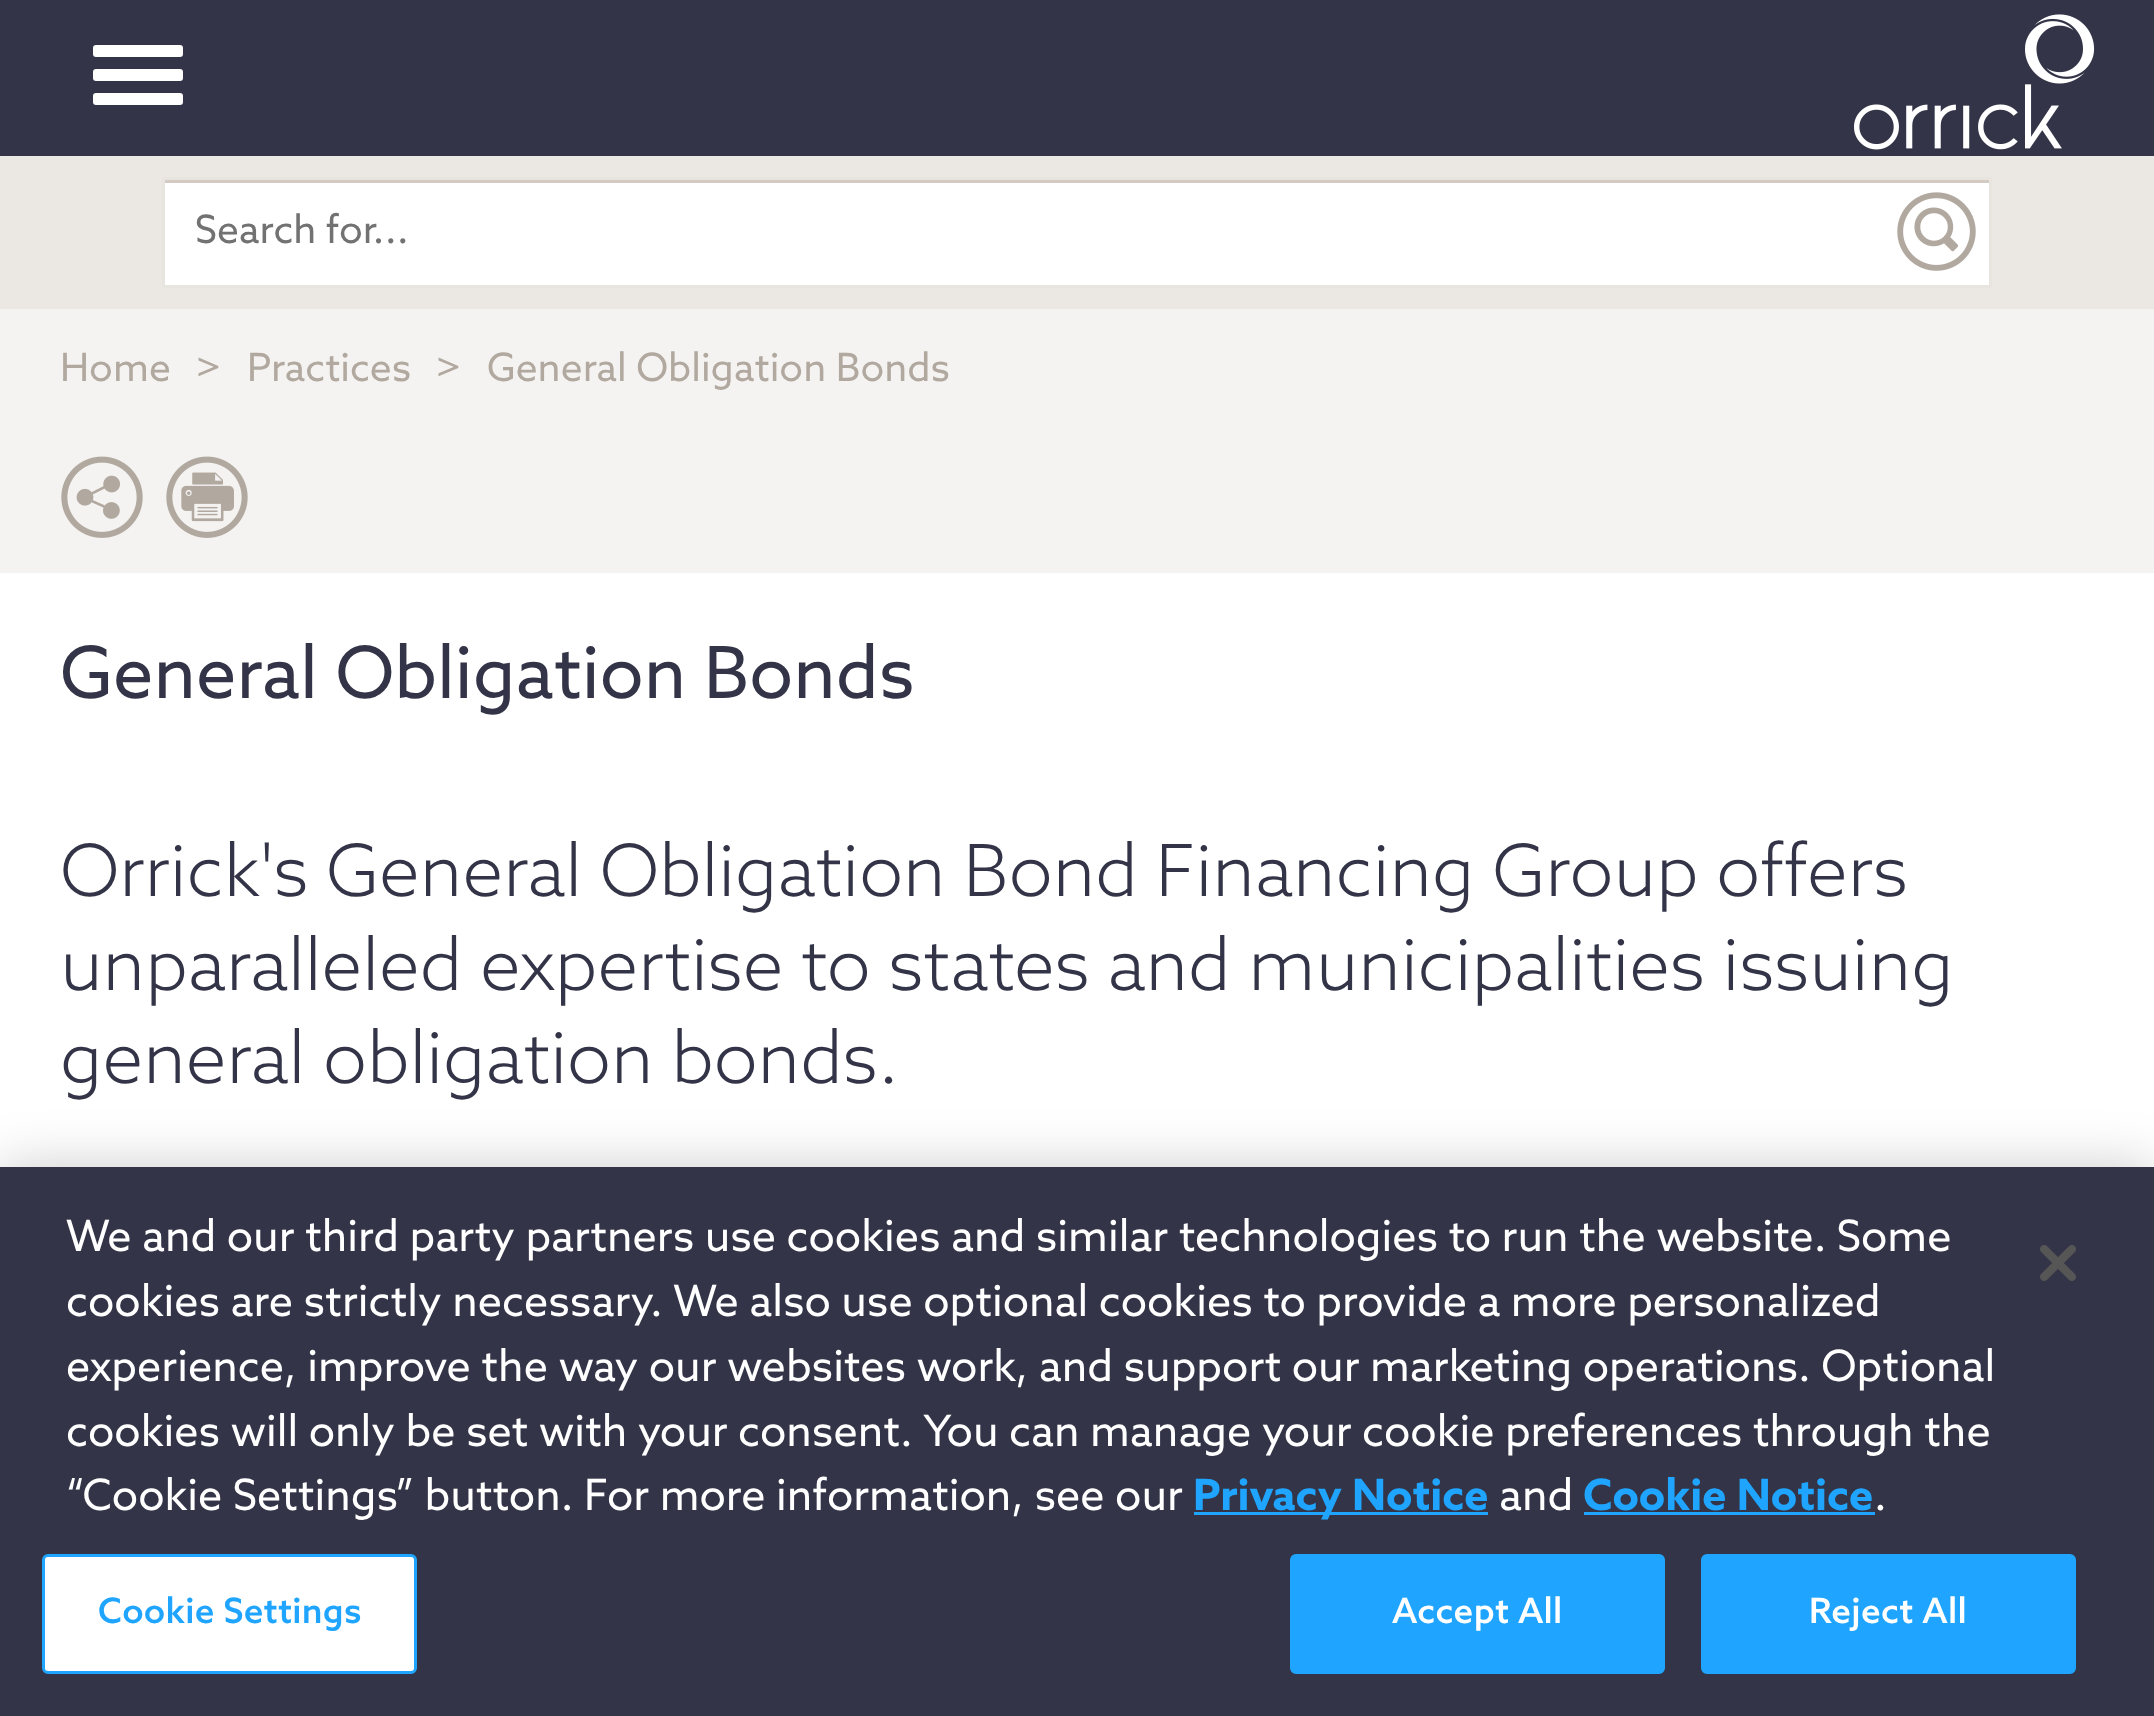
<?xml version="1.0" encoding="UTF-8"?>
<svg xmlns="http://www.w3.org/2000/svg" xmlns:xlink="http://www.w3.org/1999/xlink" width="2154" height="1716">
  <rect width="100%" height="100%" fill="#ffffff" />
  <rect width="2154" height="156" fill="#333447" />
  <rect x="93" y="45" width="90" height="12" rx="3" fill="#ffffff" />
  <rect x="93" y="69" width="90" height="12" rx="3" fill="#ffffff" />
  <rect x="93" y="93" width="90" height="12" rx="3" fill="#ffffff" />
  <image x="1854" y="14" width="241" height="136" xlink:href="image1.png" />
  <rect y="156" width="2154" height="153" fill="#ebe8e4" />
  <rect x="165" y="183" width="1824" height="102" fill="#ffffff" />
  <rect x="165" y="180" width="1824" height="3" fill="#d3cbc1" />
  <rect x="162" y="177" width="1830" height="3" fill="#e8e4df" />
  <rect x="162" y="285" width="1725" height="3" fill="#e8e4df" />
  <rect x="162" y="177" width="3" height="111" fill="#e8e4df" />
  <rect x="1989" y="177" width="3" height="111" fill="#e8e4df" />
  <rect x="1884" y="285" width="108" height="3" fill="#e8e4df" />
  <image x="1897" y="192" width="79" height="79" xlink:href="image2.png" />
  <rect y="309" width="2154" height="264" fill="#f5f3f2" />
  <image x="61" y="456" width="82" height="82" xlink:href="image3.png" />
  <image x="166" y="456" width="82" height="82" xlink:href="image4.png" />
  <rect y="1167" width="2154" height="549" fill="#000000" fill-opacity="0.2" filter="blur(27px)" />
  <rect y="1167" width="2154" height="549" fill="#333447" />
  <rect x="1194" y="1512" width="294" height="3" fill="#1fa5ff" />
  <rect x="1584" y="1512" width="291" height="3" fill="#1fa5ff" />
  <rect x="43.5" y="1555.5" width="372" height="117" rx="4.5" fill="#ffffff" stroke="#1fa5ff" stroke-width="3" />
  <rect x="1291.5" y="1555.5" width="372" height="117" rx="4.5" fill="#1fa5ff" stroke="#1fa5ff" stroke-width="3" />
  <rect x="1702.5" y="1555.5" width="372" height="117" rx="4.5" fill="#1fa5ff" stroke="#1fa5ff" stroke-width="3" />
  <image x="2040" y="1245" width="36" height="36" xlink:href="image5.png" />
  <text x="195" y="243" style="font-family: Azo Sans; font-size: 39px; fill: #717271">Search for...</text>
  <text x="60" y="381" style="font-family: Azo Sans; font-size: 39px; fill: #b1a99f">Home</text>
  <text x="195" y="381" style="font-family: Azo Sans; font-size: 39px; fill: #b1a99f">&gt;</text>
  <text x="247" y="381" style="font-family: Azo Sans; font-size: 39px; fill: #b1a99f">Practices</text>
  <text x="435" y="381" style="font-family: Azo Sans; font-size: 39px; fill: #b1a99f">&gt;</text>
  <text x="487" y="381" style="font-family: Azo Sans; font-size: 39px; fill: #b1a99f">General Obligation Bonds</text>
  <text x="60" y="698" style="font-family: Azo Sans; font-size: 72px; fill: #333447">General Obligation Bonds</text>
  <text x="60" y="896" style="font-family: Azo Sans; font-size: 72px; font-weight: 300; fill: #333447">Orrick's General Obligation Bond Financing Group offers</text>
  <text x="60" y="990" style="font-family: Azo Sans; font-size: 72px; font-weight: 300; fill: #333447">unparalleled expertise to states and municipalities issuing</text>
  <text x="60" y="1083" style="font-family: Azo Sans; font-size: 72px; font-weight: 300; fill: #333447">general obligation bonds.</text>
  <text x="66" y="1251" style="font-family: Azo Sans; font-size: 43.2px; fill: #ffffff">We and our third party partners use cookies and similar technologies to run the website. Some</text>
  <text x="66" y="1316" style="font-family: Azo Sans; font-size: 43.2px; fill: #ffffff">cookies are strictly necessary. We also use optional cookies to provide a more personalized</text>
  <text x="66" y="1381" style="font-family: Azo Sans; font-size: 43.2px; fill: #ffffff">experience, improve the way our websites work, and support our marketing operations. Optional</text>
  <text x="66" y="1446" style="font-family: Azo Sans; font-size: 43.2px; fill: #ffffff">cookies will only be set with your consent. You can manage your cookie preferences through the</text>
  <text x="66" y="1510" style="font-family: Azo Sans; font-size: 43.2px; fill: #ffffff">“Cookie Settings” button. For more information, see our</text>
  <text x="1193" y="1510" style="font-family: Azo Sans; font-size: 43.2px; font-weight: bold; fill: #1fa5ff">Privacy Notice</text>
  <text x="1499" y="1510" style="font-family: Azo Sans; font-size: 43.2px; fill: #ffffff">and</text>
  <text x="1583" y="1510" style="font-family: Azo Sans; font-size: 43.2px; font-weight: bold; fill: #1fa5ff">Cookie Notice</text>
  <text x="1874" y="1510" style="font-family: Azo Sans; font-size: 43.2px; fill: #ffffff">.</text>
  <text x="98" y="1623" style="font-family: Azo Sans; font-size: 35px; font-weight: 500; letter-spacing: 0.3px; fill: #1fa5ff">Cookie Settings</text>
  <text x="1392" y="1623" style="font-family: Azo Sans; font-size: 35px; font-weight: 500; letter-spacing: 0.3px; fill: #ffffff">Accept All</text>
  <text x="1809" y="1623" style="font-family: Azo Sans; font-size: 35px; font-weight: 500; letter-spacing: 0.3px; fill: #ffffff">Reject All</text>
</svg>
